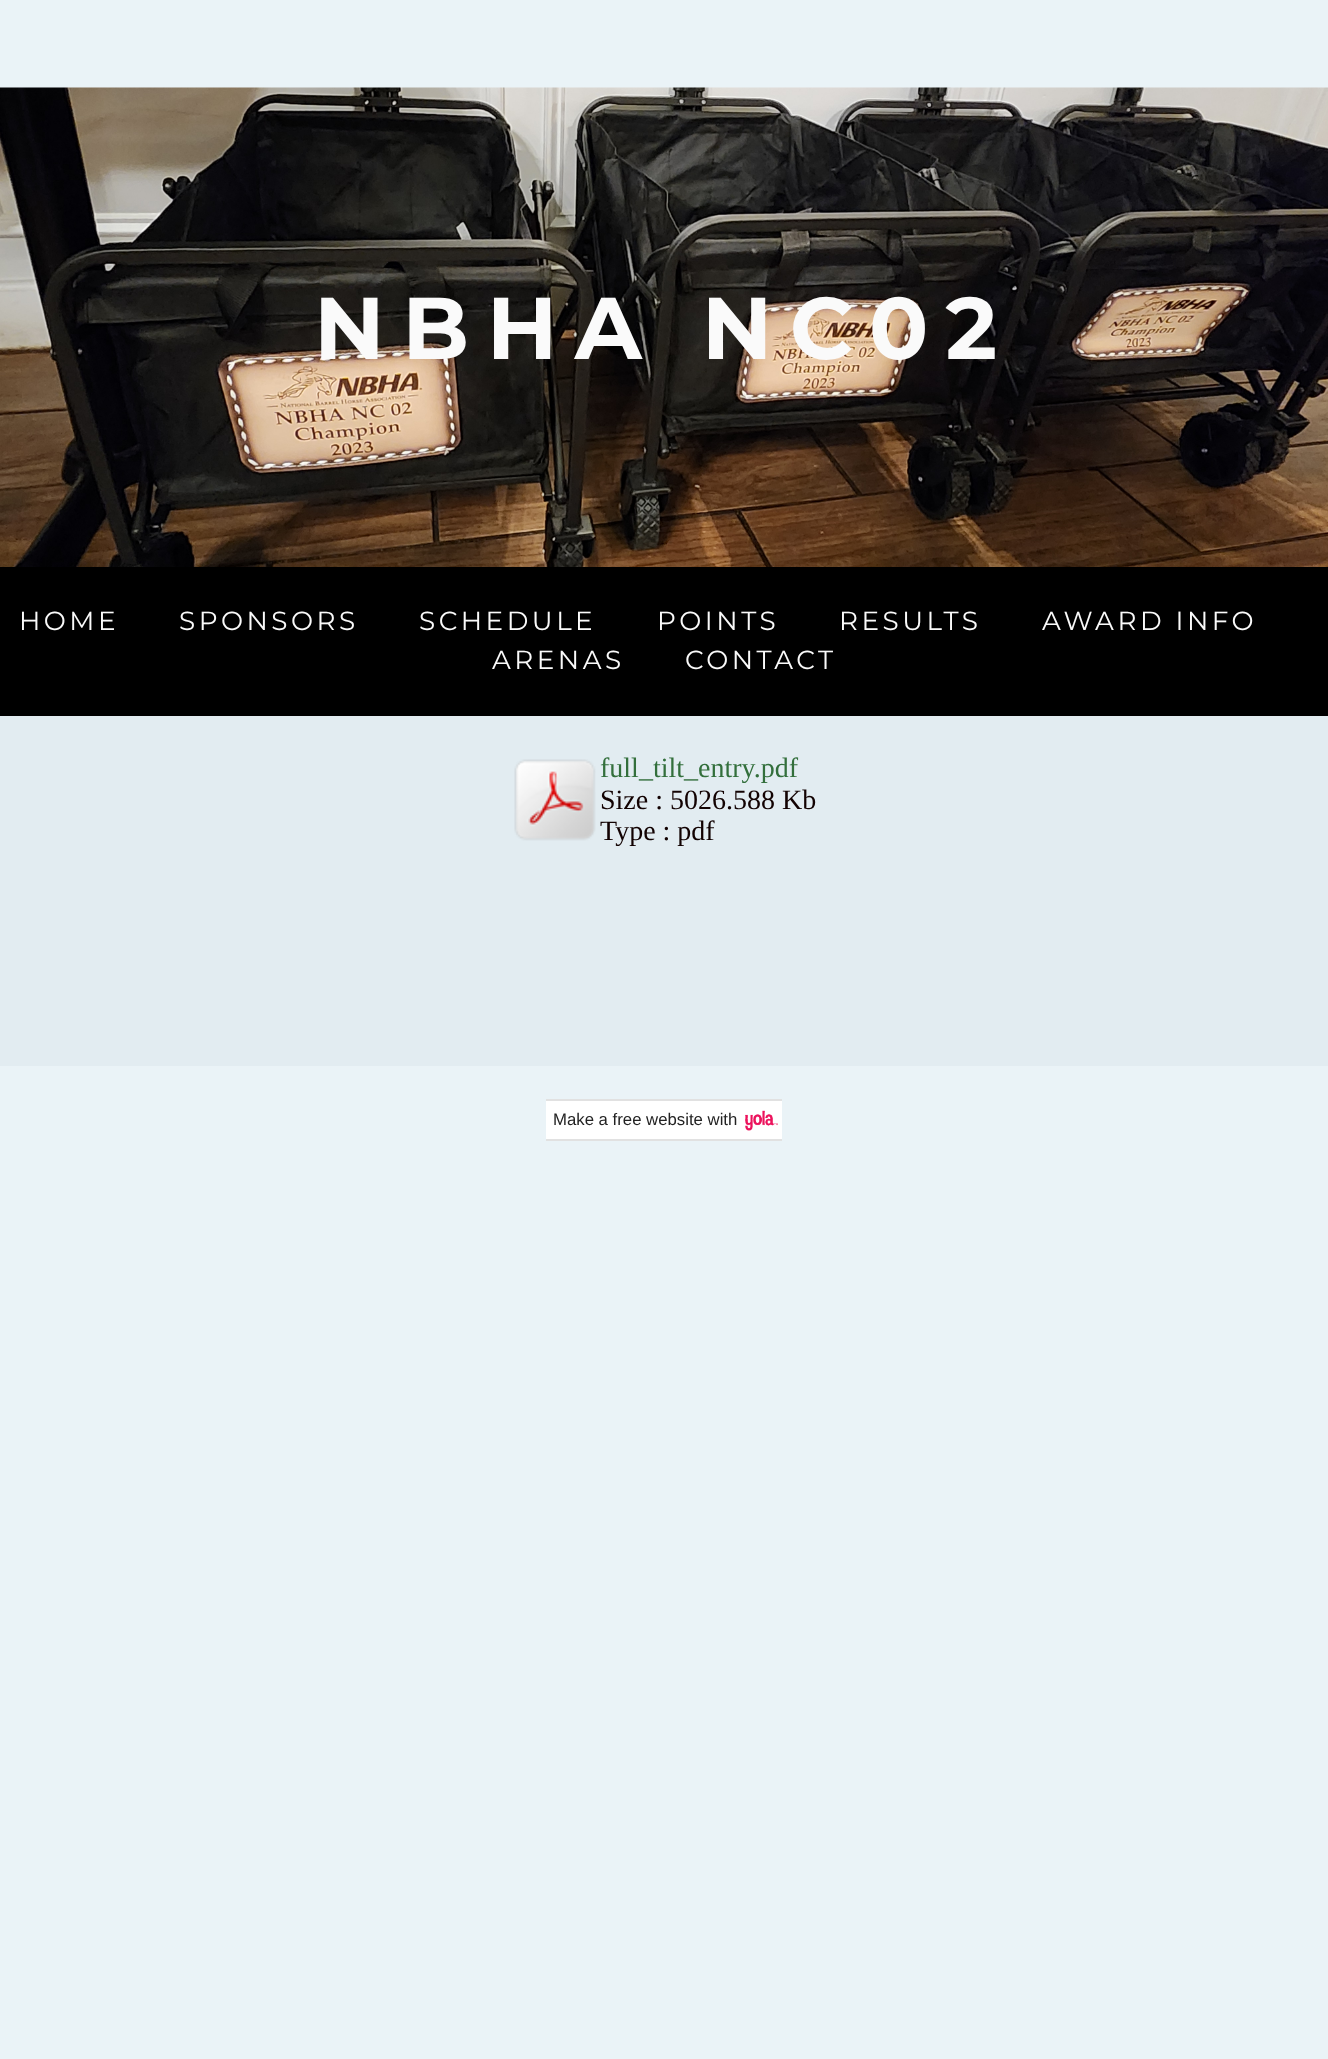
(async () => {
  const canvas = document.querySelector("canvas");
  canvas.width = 1328;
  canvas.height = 2059;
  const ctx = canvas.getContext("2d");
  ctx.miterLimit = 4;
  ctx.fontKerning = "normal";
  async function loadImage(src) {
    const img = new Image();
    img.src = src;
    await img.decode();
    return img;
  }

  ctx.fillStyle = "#eaf3f7";
  ctx.fillRect(0, 0, 1328, 2059);
  ctx.drawImage(await loadImage("img/1.png"), 0, 87, 1328, 480);
  ctx.fillStyle = "#000000";
  ctx.fillRect(0, 567, 1328, 149);
  ctx.fillStyle = "#e2ecf1";
  ctx.fillRect(0, 716, 1328, 350);
  ctx.drawImage(await loadImage("img/2.png"), 514, 759, 82, 82);
  ctx.fillStyle = "#ffffff";
  ctx.fillRect(546, 1101, 236, 38);
  ctx.drawImage(await loadImage("img/3.png"), 745, 1110, 33, 21);
  ctx.fillStyle = "#e1e1e1";
  ctx.fillRect(546, 1099, 236, 2);
  ctx.fillRect(546, 1139, 236, 2);
  ctx.letterSpacing = "17.5px";
  ctx.font = "bold 87.5px Montserrat";
  ctx.fillStyle = "#fafafa";
  ctx.fillText("NBHA NC02", 314, 359);
  ctx.letterSpacing = "3.5px";
  ctx.font = "26.25px Montserrat";
  for (const [text, x, y] of [
    ["HOME", 19, 630],
    ["SPONSORS", 179, 630],
    ["SCHEDULE", 419, 630],
    ["POINTS", 657, 630],
    ["RESULTS", 839, 630],
    ["AWARD INFO", 1042, 630],
    ["ARENAS", 492, 669],
    ["CONTACT", 685, 669],
  ]) {
    ctx.fillText(text, x, y);
  }
  ctx.letterSpacing = "0px";
  ctx.font = "28px Liberation Serif";
  ctx.fillStyle = "#336f3c";
  ctx.fillText("full_tilt_entry.pdf", 600, 777);
  ctx.fillStyle = "#120202";
  ctx.fillText("Size : 5026.588 Kb", 600, 809);
  ctx.fillText("Type : pdf", 600, 840);
  ctx.font = "16.75px Liberation Sans";
  ctx.fillStyle = "#222222";
  ctx.fillText("Make a free website with", 553, 1125);
})();
